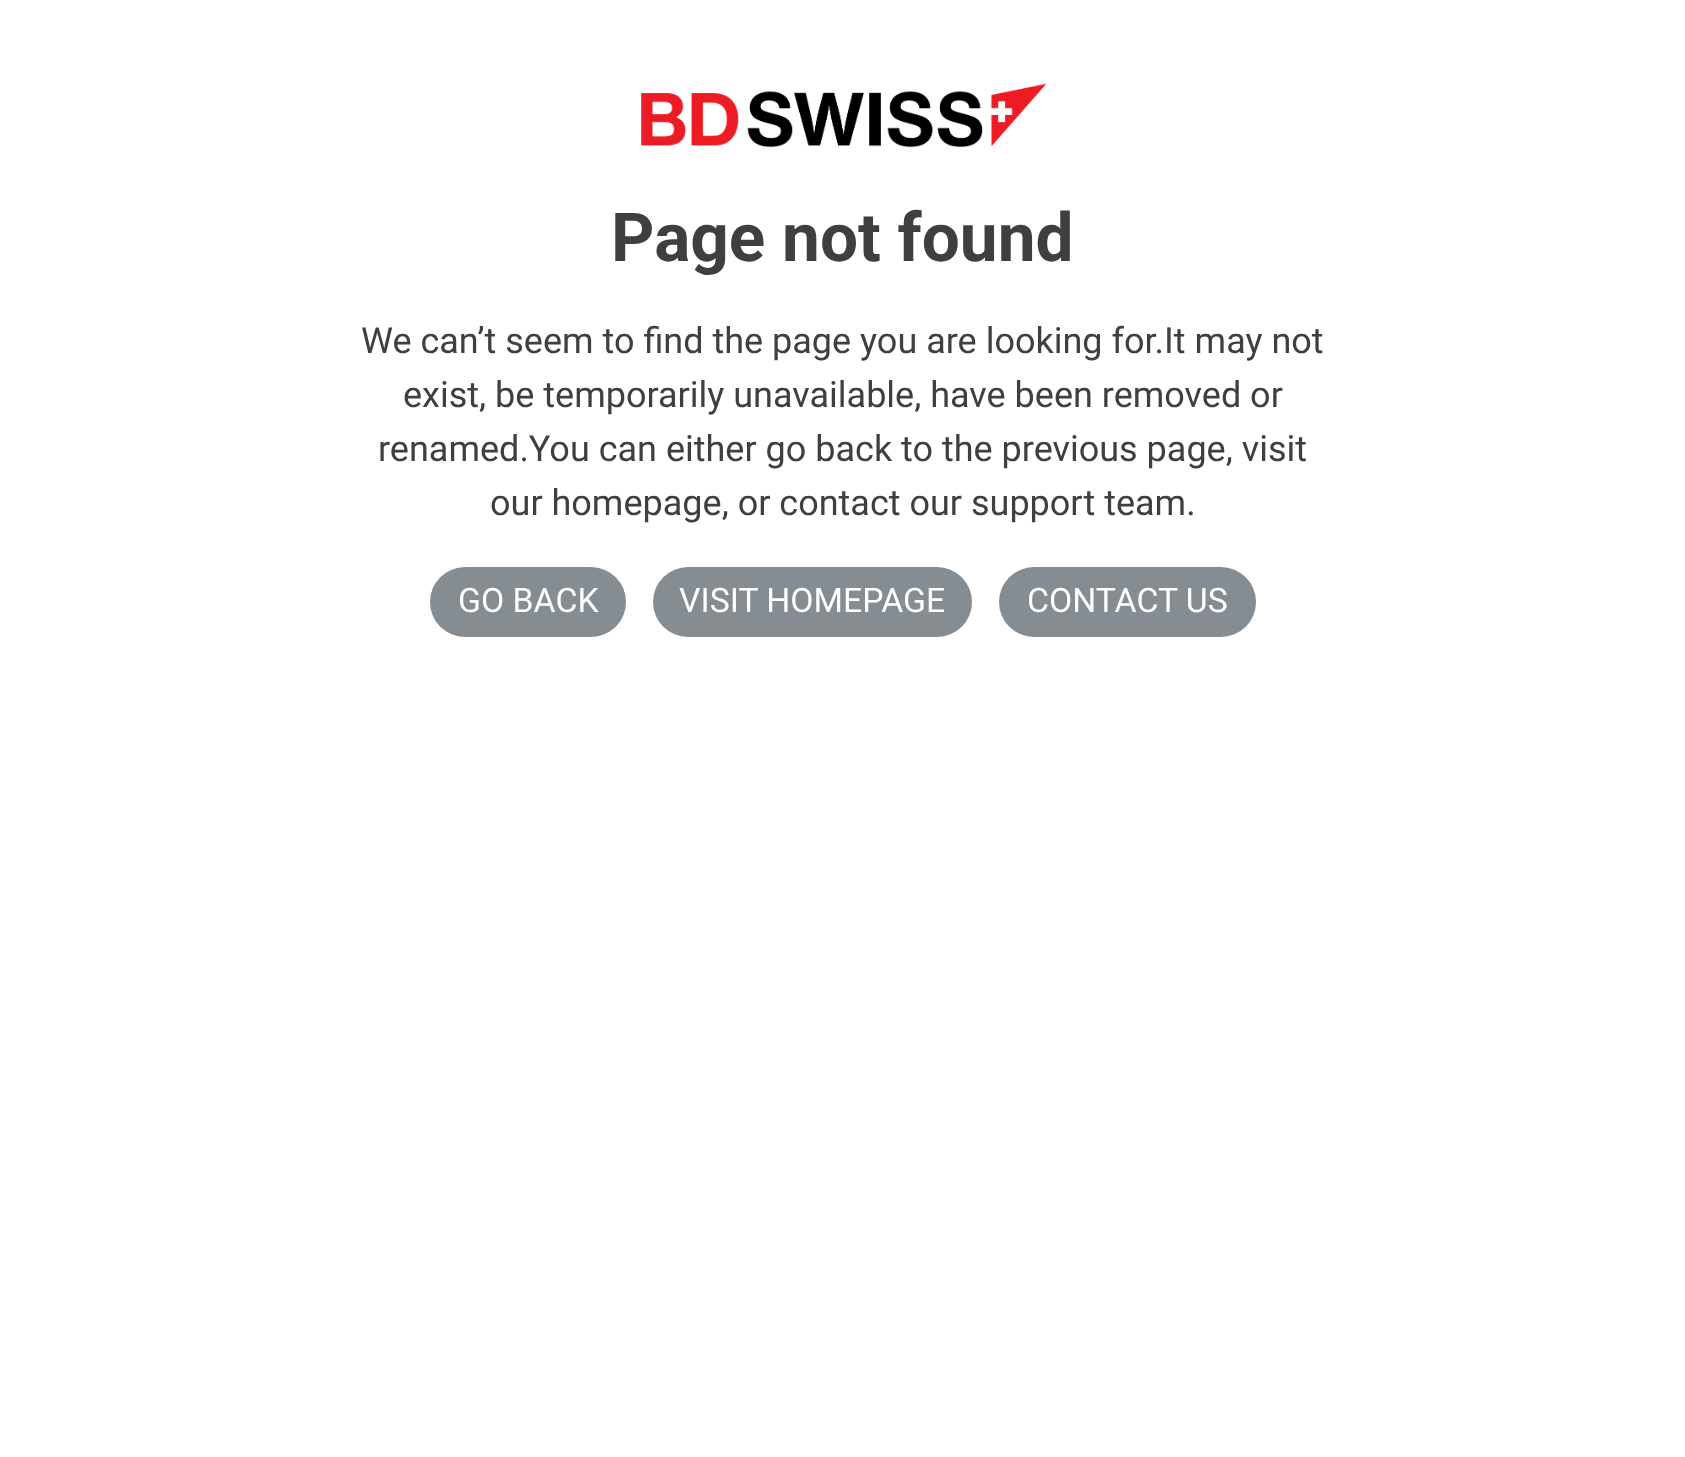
(async () => {
  const canvas = document.querySelector("canvas");
  canvas.width = 1685;
  canvas.height = 1457;
  const ctx = canvas.getContext("2d");
  ctx.miterLimit = 4;
  ctx.fontKerning = "normal";
  async function loadImage(src) {
    const img = new Image();
    img.src = src;
    await img.decode();
    return img;
  }

  ctx.fillStyle = "#ffffff";
  ctx.fillRect(0, 0, 1685, 1457);
  ctx.drawImage(await loadImage("img/1.png"), 641, 83, 406, 65);
  ctx.fillStyle = "#858c92";
  ctx.beginPath();
  ctx.roundRect(430, 567, 196, 70, 35);
  ctx.fill();
  ctx.beginPath();
  ctx.roundRect(653, 567, 319, 70, 35);
  ctx.fill();
  ctx.beginPath();
  ctx.roundRect(999, 567, 257, 70, 35);
  ctx.fill();
  ctx.font = "bold 67.5px Roboto";
  ctx.fillStyle = "#3f3f3f";
  ctx.fillText("Page not found", 611, 261);
  ctx.font = "36px Roboto";
  for (const [text, x, y] of [
    ["We can’t seem to find the page you are looking for.It may not", 361, 353],
    ["exist, be temporarily unavailable, have been removed or", 403, 407],
    ["renamed.You can either go back to the previous page, visit", 378, 461],
    ["our homepage, or contact our support team.", 490, 515],
  ]) {
    ctx.fillText(text, x, y);
  }
  ctx.font = "33.75px Roboto";
  ctx.fillStyle = "#ffffff";
  for (const [text, x, y] of [
    ["GO BACK", 458, 612],
    ["VISIT HOMEPAGE", 679, 612],
    ["CONTACT US", 1027, 612],
  ]) {
    ctx.fillText(text, x, y);
  }
})();
